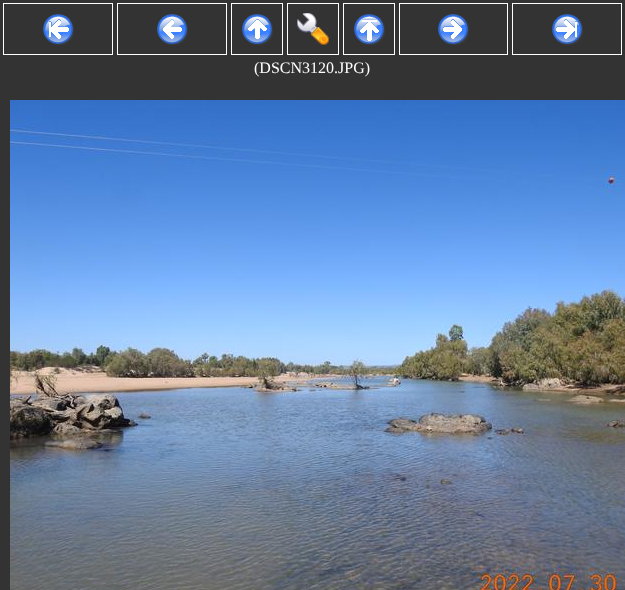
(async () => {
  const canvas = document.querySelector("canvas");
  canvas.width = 625;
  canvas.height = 590;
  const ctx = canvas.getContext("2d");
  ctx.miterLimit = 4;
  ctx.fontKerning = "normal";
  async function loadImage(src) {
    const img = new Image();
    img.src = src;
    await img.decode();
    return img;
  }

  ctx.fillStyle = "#333333";
  ctx.fillRect(0, 0, 625, 590);
  ctx.strokeStyle = "#ffffff";
  ctx.strokeRect(3.5, 3.5, 109, 51);
  ctx.drawImage(await loadImage("img/1.png"), 43, 14, 31, 31);
  ctx.strokeRect(117.5, 3.5, 109, 51);
  ctx.drawImage(await loadImage("img/2.png"), 157, 14, 31, 31);
  ctx.strokeRect(231.5, 3.5, 51, 51);
  ctx.drawImage(await loadImage("img/3.png"), 242, 14, 31, 31);
  ctx.strokeRect(287.5, 3.5, 51, 51);
  ctx.drawImage(await loadImage("img/4.png"), 297, 13, 32, 32);
  ctx.strokeRect(343.5, 3.5, 51, 51);
  ctx.drawImage(await loadImage("img/5.png"), 354, 14, 31, 31);
  ctx.strokeRect(399.5, 3.5, 108, 51);
  ctx.drawImage(await loadImage("img/6.png"), 438, 14, 31, 31);
  ctx.strokeRect(512.5, 3.5, 109, 51);
  ctx.drawImage(await loadImage("img/7.png"), 552, 14, 31, 31);
  ctx.drawImage(await loadImage("img/8.png"), 10, 100, 615, 490);
  ctx.font = "16px Liberation Serif";
  ctx.fillStyle = "#ffffff";
  ctx.fillText("(DSCN3120.JPG)", 254, 73);
})();
